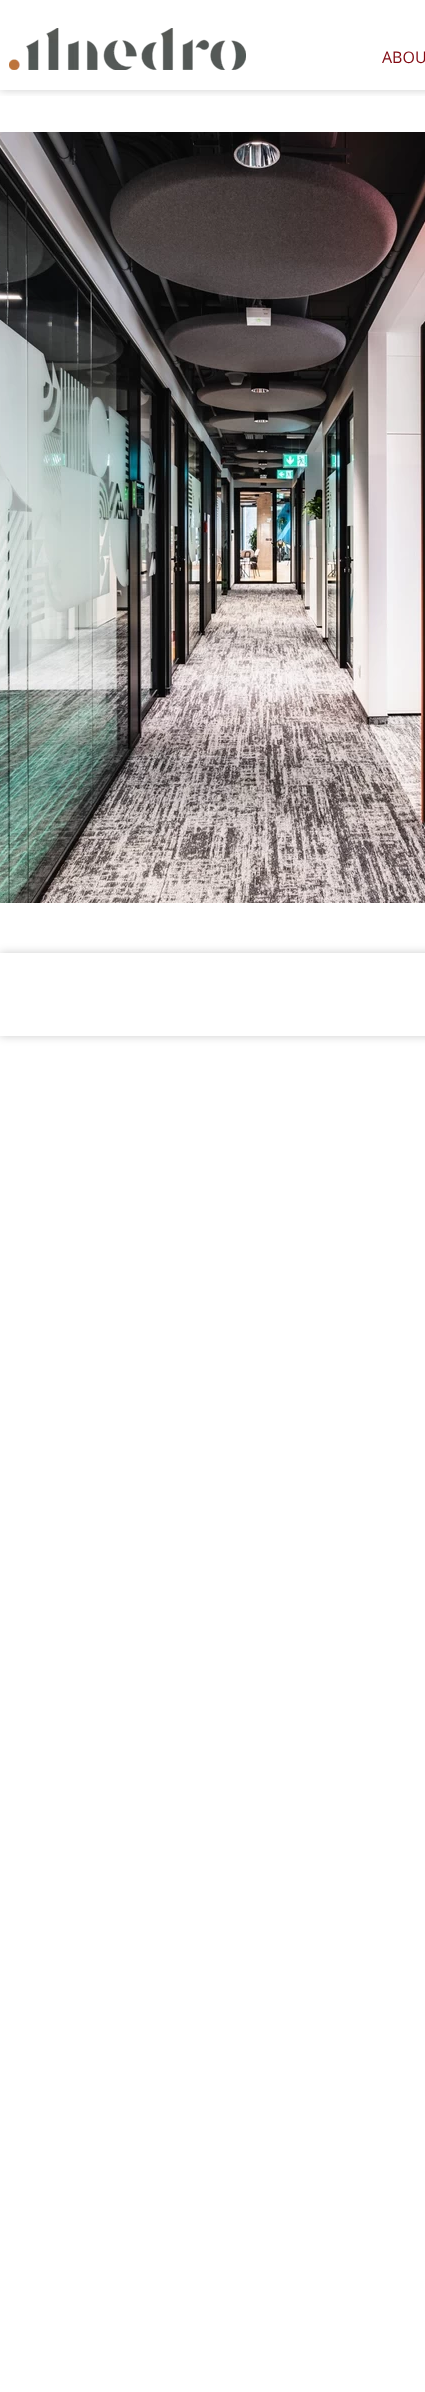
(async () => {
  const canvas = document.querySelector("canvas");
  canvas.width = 425;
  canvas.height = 2392;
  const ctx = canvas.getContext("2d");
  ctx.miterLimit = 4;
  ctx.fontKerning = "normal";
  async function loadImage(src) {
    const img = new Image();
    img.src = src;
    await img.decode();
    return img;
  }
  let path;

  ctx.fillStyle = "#ffffff";
  ctx.fillRect(0, 0, 425, 2392);
  ctx.save();
  ctx.beginPath();
  ctx.rect(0, 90, 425, 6);
  ctx.clip();
  ctx.fillStyle = "rgba(0, 0, 0, 0.2)";
  ctx.filter = "blur(5px)";
  ctx.beginPath();
  ctx.rect(0, 0, 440, 90);
  ctx.fill();
  ctx.filter = "none";
  ctx.restore();
  ctx.drawImage(await loadImage("img/1.png"), 9, 28, 237, 42);
  ctx.drawImage(await loadImage("img/2.png"), 0, 132, 425, 771);
  ctx.save();
  path = new Path2D("M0 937H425V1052H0ZM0 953H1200V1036H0Z");
  ctx.clip(path, "evenodd");
  ctx.fillStyle = "rgba(0, 0, 0, 0.2)";
  ctx.filter = "blur(5px)";
  ctx.beginPath();
  ctx.rect(0, 953, 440, 83);
  ctx.fill();
  ctx.filter = "none";
  ctx.restore();
  ctx.font = "16px Open Sans";
  ctx.fillStyle = "#810911";
  ctx.fillText("ABOU", 382, 63);
})();
